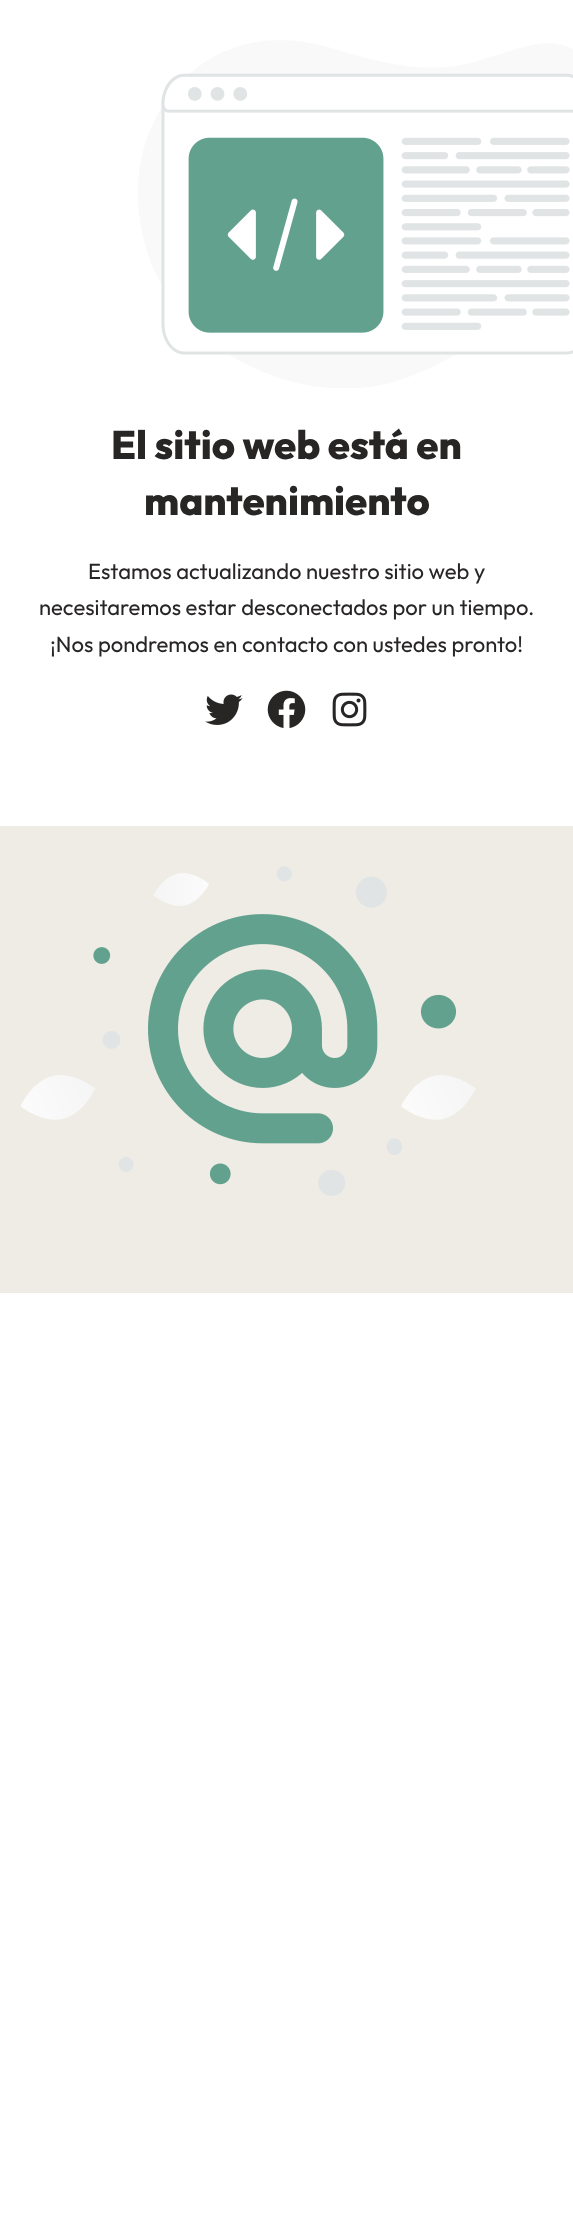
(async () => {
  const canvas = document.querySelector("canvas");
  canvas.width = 573;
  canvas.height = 2214;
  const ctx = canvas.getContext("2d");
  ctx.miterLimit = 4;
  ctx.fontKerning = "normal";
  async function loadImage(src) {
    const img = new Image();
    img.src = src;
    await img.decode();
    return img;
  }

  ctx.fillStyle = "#ffffff";
  ctx.fillRect(0, 0, 573, 2214);
  ctx.drawImage(await loadImage("img/1.png"), 138, 40, 435, 348);
  ctx.drawImage(await loadImage("img/2.png"), 205, 694, 38, 31);
  ctx.drawImage(await loadImage("img/3.png"), 267, 690, 39, 38);
  ctx.drawImage(await loadImage("img/4.png"), 332, 692, 35, 35);
  ctx.fillStyle = "#efece5";
  ctx.fillRect(0, 826, 573, 467);
  ctx.drawImage(await loadImage("img/5.png"), 20, 866, 456, 330);
  ctx.font = "800 40px Outfit";
  ctx.fillStyle = "#282525";
  ctx.fillText("El sitio web está en", 111, 459);
  ctx.fillText("mantenimiento", 144, 515);
  ctx.font = "22px Outfit";
  for (const [text, x, y] of [
    ["Estamos actualizando nuestro sitio web y", 88, 579],
    ["necesitaremos estar desconectados por un tiempo.", 39, 615],
    ["¡Nos pondremos en contacto con ustedes pronto!", 50, 652],
  ]) {
    ctx.fillText(text, x, y);
  }
})();
